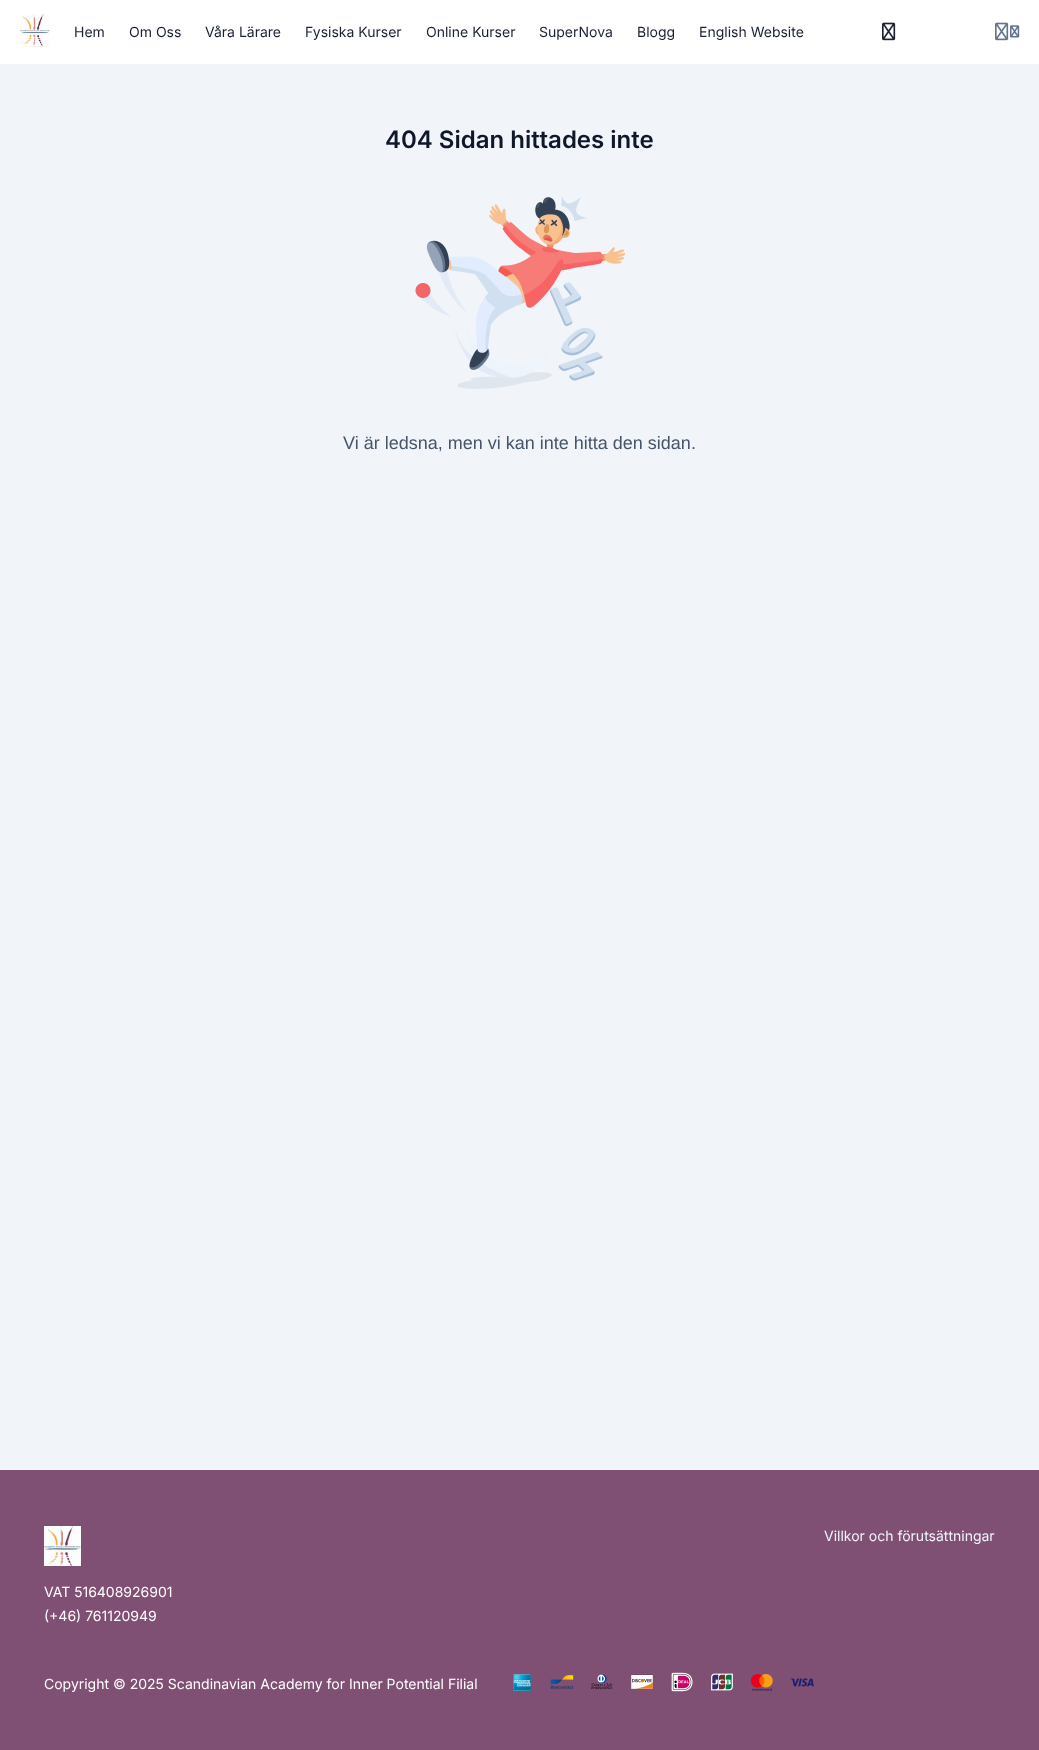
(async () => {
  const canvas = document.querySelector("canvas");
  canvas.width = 1039;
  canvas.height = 1750;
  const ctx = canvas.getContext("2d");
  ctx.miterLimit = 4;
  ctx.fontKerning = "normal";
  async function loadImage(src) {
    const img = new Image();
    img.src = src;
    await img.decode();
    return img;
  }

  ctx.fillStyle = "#f1f5f9";
  ctx.fillRect(0, 0, 1039, 1750);
  ctx.fillStyle = "#ffffff";
  ctx.fillRect(0, 0, 1039, 64);
  ctx.drawImage(await loadImage("img/1.png"), 20, 14, 30, 33);
  ctx.drawImage(await loadImage("img/2.png"), 882, 22, 14, 19);
  ctx.drawImage(await loadImage("img/3.png"), 995, 22, 14, 19);
  ctx.drawImage(await loadImage("img/4.png"), 1010, 25, 10, 13);
  ctx.drawImage(await loadImage("img/5.png"), 415, 197, 210, 192);
  ctx.fillStyle = "#804f74";
  ctx.fillRect(0, 1470, 1039, 280);
  ctx.drawImage(await loadImage("img/6.png"), 44, 1526, 37, 40);
  ctx.drawImage(await loadImage("img/7.png"), 511, 1674, 20, 17);
  ctx.drawImage(await loadImage("img/8.png"), 550, 1675, 24, 14);
  ctx.drawImage(await loadImage("img/9.png"), 591, 1674, 22, 15);
  ctx.drawImage(await loadImage("img/10.png"), 631, 1674, 22, 15);
  ctx.drawImage(await loadImage("img/11.png"), 671, 1672, 22, 20);
  ctx.drawImage(await loadImage("img/12.png"), 711, 1673, 22, 18);
  ctx.drawImage(await loadImage("img/13.png"), 750, 1674, 23, 17);
  ctx.drawImage(await loadImage("img/14.png"), 790, 1678, 24, 9);
  ctx.font = "14px Inter";
  ctx.fillStyle = "#1a2133";
  for (const [text, x, y] of [
    ["Hem", 74, 37],
    ["Om Oss", 129, 37],
    ["Våra Lärare", 205, 37],
    ["Fysiska Kurser", 305, 37],
    ["Online Kurser", 426, 37],
    ["SuperNova", 539, 37],
    ["Blogg", 637, 37],
    ["English Website", 699, 37],
  ]) {
    ctx.fillText(text, x, y);
  }
  ctx.font = "600 24px Inter";
  ctx.fillStyle = "#0f172a";
  ctx.fillText("404 Sidan hittades inte", 385, 148);
  ctx.font = "18px Liberation Sans";
  ctx.fillStyle = "#475569";
  ctx.fillText("Vi är ledsna, men vi kan inte hitta den sidan.", 343, 449);
  ctx.font = "14px Inter";
  ctx.fillStyle = "#f1f5f9";
  ctx.fillText("Villkor och förutsättningar", 824, 1541);
  ctx.fillStyle = "#ffffff";
  for (const [text, x, y] of [
    ["VAT 516408926901", 44, 1597],
    ["(+46) 761120949", 44, 1621],
    ["Copyright © 2025 Scandinavian Academy for Inner Potential Filial", 44, 1689],
  ]) {
    ctx.fillText(text, x, y);
  }
})();
